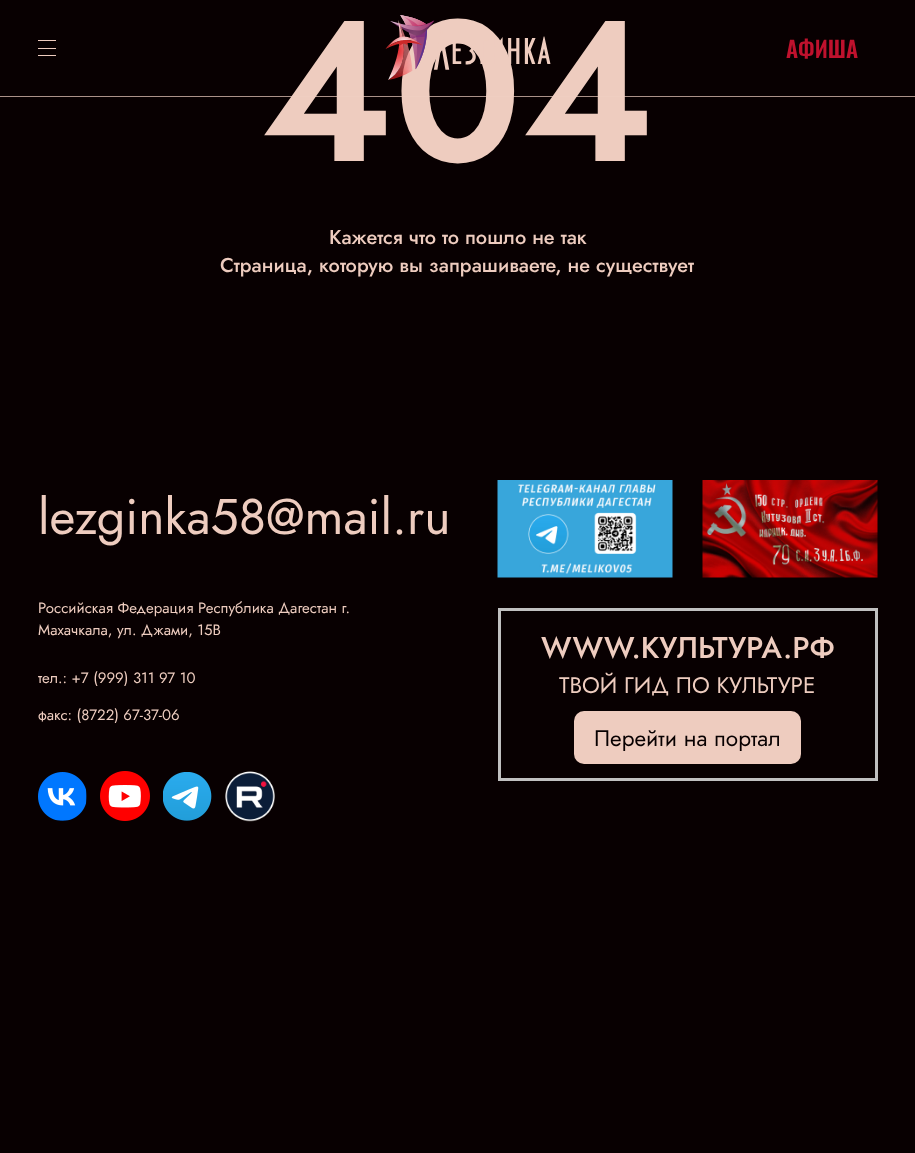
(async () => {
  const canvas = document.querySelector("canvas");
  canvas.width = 915;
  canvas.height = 1153;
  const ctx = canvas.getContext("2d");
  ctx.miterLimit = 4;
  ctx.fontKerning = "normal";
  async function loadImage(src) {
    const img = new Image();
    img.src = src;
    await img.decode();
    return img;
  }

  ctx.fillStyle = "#080001";
  ctx.fillRect(0, 0, 915, 1153);
  for (const [x, y, w, h, color] of [
    [38, 40, 18, 1, "#eeccbf"],
    [38, 48, 18, 1, "#eeccbf"],
    [38, 55, 18, 1, "#eeccbf"],
  ]) {
    ctx.fillStyle = color;
    ctx.fillRect(x, y, w, h);
  }
  ctx.drawImage(await loadImage("img/2.png"), 38, 772, 49, 49);
  ctx.drawImage(await loadImage("img/3.png"), 100, 771, 50, 50);
  ctx.drawImage(await loadImage("img/4.png"), 163, 772, 49, 49);
  ctx.drawImage(await loadImage("img/5.png"), 225, 771, 50, 51);
  ctx.drawImage(await loadImage("img/6.png"), 497, 480, 176, 98);
  ctx.drawImage(await loadImage("img/7.png"), 702, 480, 176, 98);
  ctx.strokeStyle = "#c0c0c0";
  ctx.lineWidth = 3;
  ctx.strokeRect(499.5, 609.5, 377, 170);
  ctx.beginPath();
  ctx.roundRect(574, 711, 227, 53, 10);
  ctx.fill();
  ctx.font = "600 200px Jost";
  ctx.fillText("404", 261, 161);
  ctx.font = "500 20px Jost";
  ctx.fillText("Кажется что то пошло не так", 329, 244);
  ctx.fillText("Страница, которую вы запрашиваете, не существует", 220, 272);
  ctx.fillStyle = "rgba(239, 207, 194, 0.7)";
  ctx.fillRect(0, 96, 915, 1);
  ctx.drawImage(await loadImage("img/1.png"), 385, 15, 166, 65);
  ctx.font = "600 22.5px Oswald";
  ctx.fillStyle = "#bf112d";
  ctx.fillText("АФИША", 786, 58);
  ctx.font = "50px Jost";
  ctx.fillStyle = "#eeccbf";
  ctx.fillText("lezginka58@mail.ru", 38, 534);
  ctx.font = "15px Jost";
  for (const [text, x, y] of [
    ["Российская Федерация Республика Дагестан г.", 38, 613],
    ["Махачкала, ул. Джами, 15В", 38, 635],
    ["тел.: +7 (999) 311 97 10", 38, 683],
    ["факс: (8722) 67-37-06", 38, 720],
  ]) {
    ctx.fillText(text, x, y);
  }
  ctx.font = "500 30px Jost";
  ctx.fillText("WWW.КУЛЬТУРА.РФ", 541, 658);
  ctx.font = "22.5px Jost";
  ctx.fillText("ТВОЙ ГИД ПО КУЛЬТУРЕ", 559, 693);
  ctx.fillStyle = "#080001";
  ctx.fillText("Перейти на портал", 594, 746);
})();
